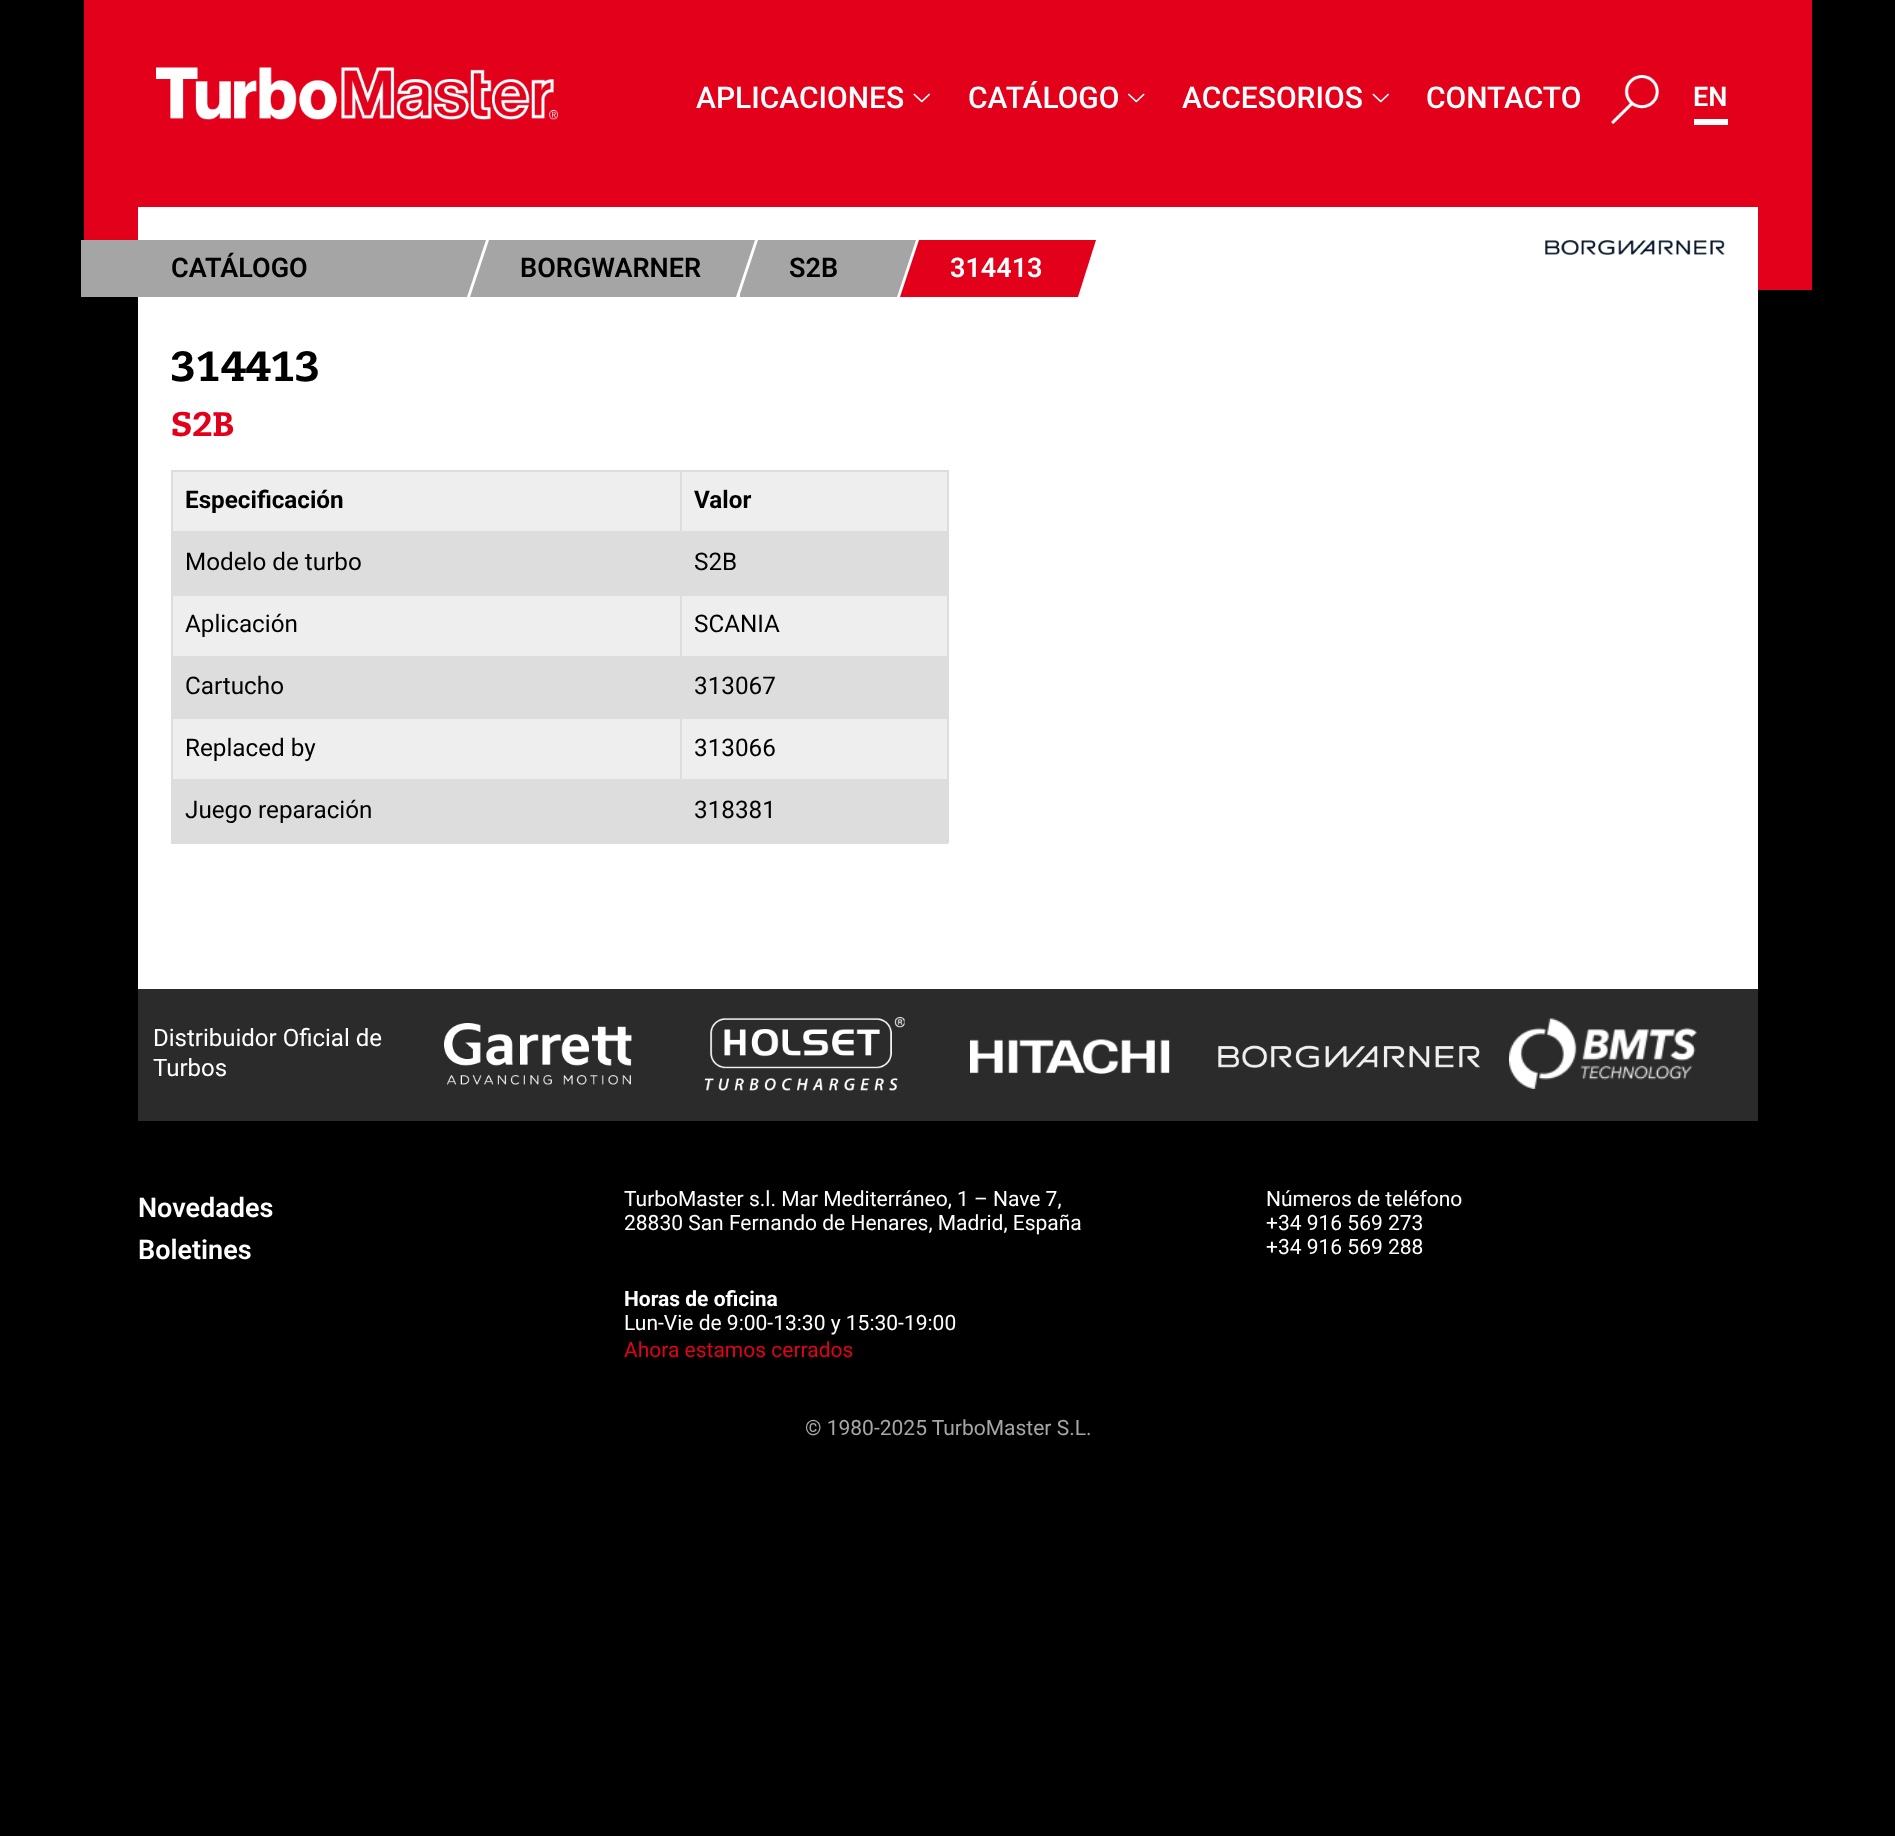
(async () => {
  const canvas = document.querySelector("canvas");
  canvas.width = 1895;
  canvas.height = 1836;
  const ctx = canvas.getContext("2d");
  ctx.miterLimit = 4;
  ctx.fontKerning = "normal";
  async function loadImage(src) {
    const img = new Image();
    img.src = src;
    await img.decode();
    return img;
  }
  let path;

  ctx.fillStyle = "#000000";
  ctx.fillRect(0, 0, 1895, 1836);
  ctx.fillStyle = "#e2001a";
  ctx.fillRect(84, 0, 1728, 290);
  ctx.drawImage(await loadImage("img/1.png"), 156, 67, 402, 53);
  ctx.drawImage(await loadImage("img/2.png"), 913, 93, 17, 10);
  ctx.drawImage(await loadImage("img/3.png"), 1128, 93, 17, 10);
  ctx.drawImage(await loadImage("img/2.png"), 1372, 93, 17, 10);
  ctx.drawImage(await loadImage("img/4.png"), 1611, 75, 48, 50);
  for (const [x, y, w, h, color] of [
    [1694, 119, 34, 6, "#ffffff"],
    [138, 956, 1620, 33, "#ffffff"],
    [138, 207, 1620, 749, "#ffffff"],
  ]) {
    ctx.fillStyle = color;
    ctx.fillRect(x, y, w, h);
  }
  ctx.drawImage(await loadImage("img/5.png"), 1545, 240, 180, 15);
  ctx.fillStyle = "#a5a5a5";
  ctx.fillRect(81, 240, 359, 57);
  path = new Path2D("M440 240H486L467 297H440Z");
  ctx.fill(path);
  ctx.fillRect(516, 240, 192, 57);
  path = new Path2D("M516 297H470L489 240H516Z");
  ctx.fill(path);
  path = new Path2D("M755 240L736 297H708V240Z");
  ctx.fill(path);
  ctx.fillRect(786, 240, 84, 57);
  path = new Path2D("M740 294L758 240H786V297H740Z");
  ctx.fill(path);
  path = new Path2D("M870 240H916L897 297H870Z");
  ctx.fill(path);
  ctx.fillStyle = "#e2001a";
  ctx.fillRect(947, 240, 103, 57);
  path = new Path2D("M947 240V297H900L919 240Z");
  ctx.fill(path);
  path = new Path2D("M1050 240H1096L1078 297H1050Z");
  ctx.fill(path);
  for (const [x, y, w, h, color] of [
    [173, 472, 507, 59, "#eeeeee"],
    [680, 470, 268, 2, "#dddddd"],
    [171, 531, 777, 2, "#dddddd"],
    [680, 470, 2, 63, "#dddddd"],
    [171, 470, 510, 2, "#dddddd"],
    [680, 594, 268, 2, "#dddddd"],
    [173, 656, 774, 63, "#dddddd"],
    [680, 594, 2, 63, "#dddddd"],
    [171, 594, 510, 2, "#dddddd"],
    [171, 779, 777, 2, "#dddddd"],
    [947, 656, 2, 187, "#dddddd"],
    [171, 842, 777, 2, "#dddddd"],
    [171, 779, 2, 64, "#dddddd"],
    [171, 717, 2, 63, "#dddddd"],
    [171, 656, 2, 63, "#dddddd"],
    [171, 594, 2, 63, "#dddddd"],
    [171, 531, 2, 65, "#dddddd"],
    [171, 470, 2, 63, "#dddddd"],
    [682, 472, 265, 59, "#eeeeee"],
    [947, 594, 2, 63, "#dddddd"],
    [947, 531, 2, 65, "#dddddd"],
    [947, 470, 2, 63, "#dddddd"],
    [173, 533, 774, 61, "#dddddd"],
    [173, 596, 507, 60, "#eeeeee"],
    [682, 596, 265, 60, "#eeeeee"],
    [173, 719, 507, 60, "#eeeeee"],
    [682, 719, 265, 60, "#eeeeee"],
    [680, 717, 2, 63, "#dddddd"],
    [173, 781, 774, 61, "#dddddd"],
    [138, 989, 1620, 132, "#2b2b2b"],
  ]) {
    ctx.fillStyle = color;
    ctx.fillRect(x, y, w, h);
  }
  ctx.drawImage(await loadImage("img/6.png"), 444, 1023, 188, 62);
  ctx.drawImage(await loadImage("img/7.png"), 704, 1017, 201, 74);
  ctx.drawImage(await loadImage("img/8.png"), 970, 1039, 200, 35);
  ctx.drawImage(await loadImage("img/9.png"), 1218, 1045, 262, 23);
  ctx.drawImage(await loadImage("img/10.png"), 1509, 1018, 188, 71);
  ctx.font = "500 30px Roboto";
  ctx.fillStyle = "#ffffff";
  for (const [text, x, y] of [
    ["APLICACIONES", 696, 108],
    ["CATÁLOGO", 968, 108],
    ["ACCESORIOS", 1182, 108],
    ["CONTACTO", 1426, 108],
  ]) {
    ctx.fillText(text, x, y);
  }
  ctx.font = "600 27px Roboto";
  ctx.fillText("EN", 1693, 106);
  ctx.fillStyle = "#000000";
  for (const [text, x, y] of [
    ["CATÁLOGO", 171, 277],
    ["BORGWARNER", 520, 277],
    ["S2B", 789, 277],
  ]) {
    ctx.fillText(text, x, y);
  }
  ctx.fillStyle = "#ffffff";
  ctx.fillText("314413", 950, 277);
  ctx.font = "900 42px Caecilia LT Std";
  ctx.fillStyle = "#000000";
  ctx.fillText("314413", 171, 381);
  ctx.font = "900 34px Caecilia LT Std";
  ctx.fillStyle = "#e2001a";
  ctx.fillText("S2B", 171, 436);
  ctx.font = "bold 24.25px Roboto";
  ctx.fillStyle = "#000000";
  ctx.fillText("Especificación", 185, 508);
  ctx.fillText("Valor", 694, 508);
  ctx.font = "24.25px Roboto";
  for (const [text, x, y] of [
    ["Modelo de turbo", 185, 570],
    ["S2B", 694, 570],
    ["Aplicación", 185, 632],
    ["SCANIA", 694, 632],
    ["Cartucho", 185, 694],
    ["313067", 694, 694],
    ["Replaced by", 185, 756],
    ["313066", 694, 756],
    ["Juego reparación", 185, 818],
    ["318381", 694, 818],
  ]) {
    ctx.fillText(text, x, y);
  }
  ctx.font = "24px Roboto";
  ctx.fillStyle = "#ffffff";
  ctx.fillText("Distribuidor Oficial de", 153, 1046);
  ctx.fillText("Turbos", 153, 1076);
  ctx.font = "600 27px Roboto";
  ctx.fillText("Novedades", 138, 1217);
  ctx.fillText("Boletines", 138, 1259);
  ctx.font = "21px Roboto";
  ctx.fillText("TurboMaster s.l. Mar Mediterráneo, 1 – Nave 7,", 624, 1206);
  ctx.fillText("28830 San Fernando de Henares, Madrid, España", 624, 1230);
  ctx.font = "bold 21px Roboto";
  ctx.fillText("Horas de oficina", 624, 1306);
  ctx.font = "21px Roboto";
  ctx.fillText("Lun-Vie de 9:00-13:30 y 15:30-19:00", 624, 1330);
  ctx.fillStyle = "#e2001a";
  ctx.fillText("Ahora estamos cerrados", 624, 1357);
  ctx.fillStyle = "#ffffff";
  for (const [text, x, y] of [
    ["Números de teléfono", 1266, 1206],
    ["+34 916 569 273", 1266, 1230],
    ["+34 916 569 288", 1266, 1254],
  ]) {
    ctx.fillText(text, x, y);
  }
  ctx.fillStyle = "#a6a6a6";
  ctx.fillText("© 1980-2025 TurboMaster S.L.", 805, 1435);
})();
